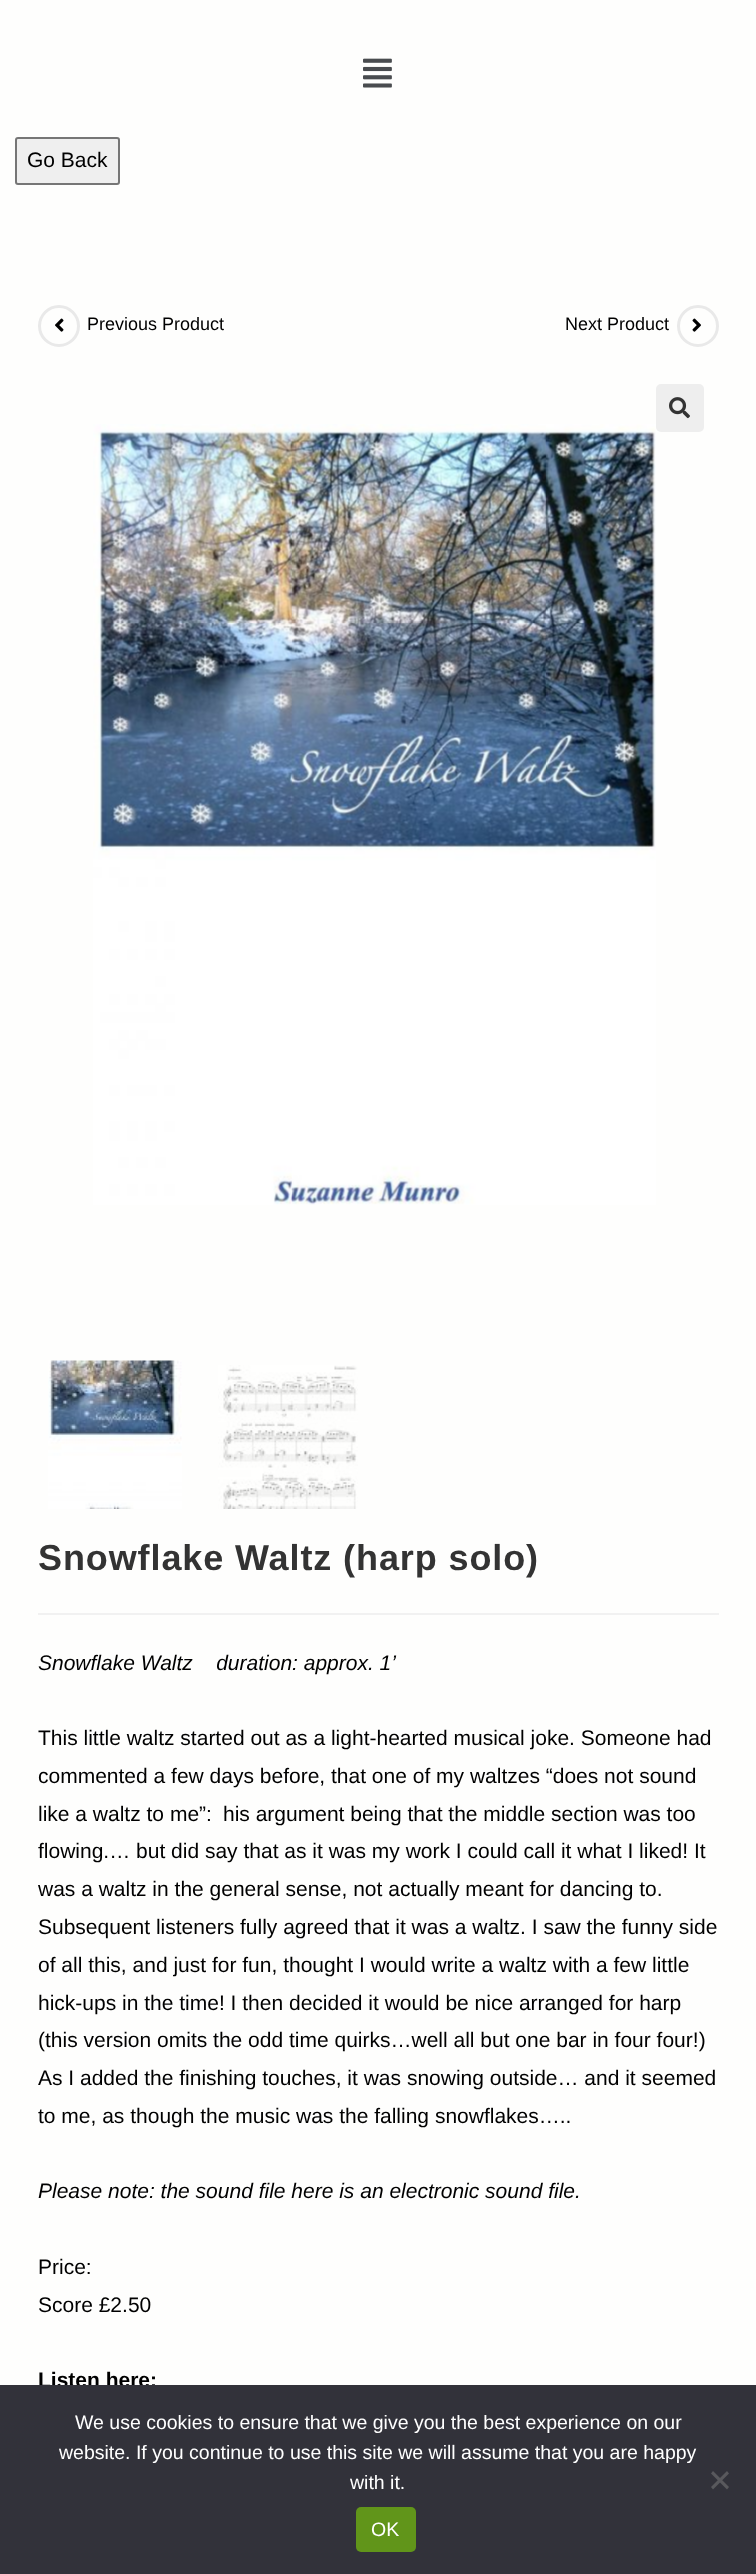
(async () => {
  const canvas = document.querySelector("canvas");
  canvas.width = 756;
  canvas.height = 2574;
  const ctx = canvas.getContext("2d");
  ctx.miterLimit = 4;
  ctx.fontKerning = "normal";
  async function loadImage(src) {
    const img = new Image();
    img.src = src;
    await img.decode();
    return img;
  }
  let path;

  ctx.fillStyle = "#fefefd";
  ctx.fillRect(0, 0, 756, 2574);
  ctx.drawImage(await loadImage("img/1.png"), 363, 58, 29, 30);
  ctx.fillStyle = "#efefef";
  ctx.beginPath();
  ctx.roundRect(16, 138, 103, 46, 2);
  ctx.fill();
  ctx.strokeStyle = "#767676";
  ctx.lineWidth = 2;
  ctx.stroke();
  ctx.beginPath();
  ctx.arc(59, 326, 19.5, 0, Math.PI * 2);
  ctx.strokeStyle = "#e9e9e9";
  ctx.lineWidth = 3;
  ctx.stroke();
  ctx.drawImage(await loadImage("img/2.png"), 55, 318, 9, 14);
  ctx.beginPath();
  ctx.arc(698, 326, 19.5, 0, Math.PI * 2);
  ctx.stroke();
  ctx.drawImage(await loadImage("img/3.png"), 692, 318, 9, 14);
  ctx.fillStyle = "#eeeeee";
  ctx.beginPath();
  ctx.roundRect(656, 384, 48, 48, 5);
  ctx.fill();
  ctx.drawImage(await loadImage("img/4.png"), 669, 397, 21, 22);
  ctx.drawImage(await loadImage("img/5.png"), 93, 424, 563, 781);
  ctx.drawImage(await loadImage("img/6.png"), 48, 1360, 134, 149);
  ctx.drawImage(await loadImage("img/7.png"), 218, 1365, 140, 144);
  ctx.fillStyle = "#f1f1f1";
  ctx.fillRect(38, 1613, 681, 2);
  ctx.font = "21px Liberation Sans";
  ctx.fillStyle = "#000000";
  ctx.fillText("Go Back", 27, 167);
  ctx.font = "18px Liberation Sans";
  ctx.fillText("Previous Product", 87, 330);
  ctx.fillText("Next Product", 565, 330);
  ctx.letterSpacing = "0.9px";
  ctx.font = "bold 36px Liberation Sans";
  ctx.fillStyle = "#333333";
  ctx.fillText("Snowflake Waltz (harp solo)", 38, 1570);
  ctx.letterSpacing = "0px";
  ctx.font = "italic 21px Liberation Sans";
  ctx.fillStyle = "#000000";
  ctx.fillText("Snowflake Waltz    duration: approx. 1’", 38, 1670);
  ctx.font = "21px Liberation Sans";
  for (const [text, x, y] of [
    ["This little waltz started out as a light-hearted musical joke. Someone had", 38, 1745],
    ["commented a few days before, that one of my waltzes “does not sound", 38, 1783],
    ["like a waltz to me”:", 38, 1821],
    ["his argument being that the middle section was too", 223, 1821],
    ["flowing.… but did say that as it was my work I could call it what I liked! It", 38, 1858],
    ["was a waltz in the general sense, not actually meant for dancing to.", 38, 1896],
    ["Subsequent listeners fully agreed that it was a waltz. I saw the funny side", 38, 1934],
    ["of all this, and just for fun, thought I would write a waltz with a few little", 38, 1972],
    ["hick-ups in the time! I then decided it would be nice arranged for harp", 38, 2010],
    ["(this version omits the odd time quirks…well all but one bar in four four!)", 38, 2047],
    ["As I added the finishing touches, it was snowing outside… and it seemed", 38, 2085],
    ["to me, as though the music was the falling snowflakes…..", 38, 2123],
  ]) {
    ctx.fillText(text, x, y);
  }
  ctx.font = "italic 21px Liberation Sans";
  ctx.fillText("Please note: the sound file here is an electronic sound file.", 38, 2198);
  ctx.font = "21px Liberation Sans";
  ctx.fillText("Price:", 38, 2274);
  ctx.fillText("Score £2.50", 38, 2312);
  ctx.font = "bold 21px Liberation Sans";
  ctx.fillText("Listen here:", 38, 2387);
  ctx.fillStyle = "#32323a";
  ctx.fillRect(0, 2385, 756, 189);
  ctx.font = "19.5px Liberation Sans";
  ctx.fillStyle = "#ffffff";
  for (const [text, x, y] of [
    ["We use cookies to ensure that we give you the best experience on our", 75, 2429],
    ["website. If you continue to use this site we will assume that you are happy", 59, 2459],
    ["with it.", 350, 2489],
  ]) {
    ctx.fillText(text, x, y);
  }
  ctx.fillStyle = "#59595d";
  path = new Path2D("M727 2471L729 2473.5L713 2489.5L711 2487Z");
  ctx.fill(path);
  path = new Path2D("M711 2473.5L713 2471L729 2487L727 2489.5Z");
  ctx.fill(path);
  ctx.fillStyle = "#61951a";
  ctx.beginPath();
  ctx.roundRect(356, 2507, 60, 45, 5);
  ctx.fill();
  ctx.fillStyle = "#ffffff";
  ctx.fillText("OK", 371, 2536);
})();
